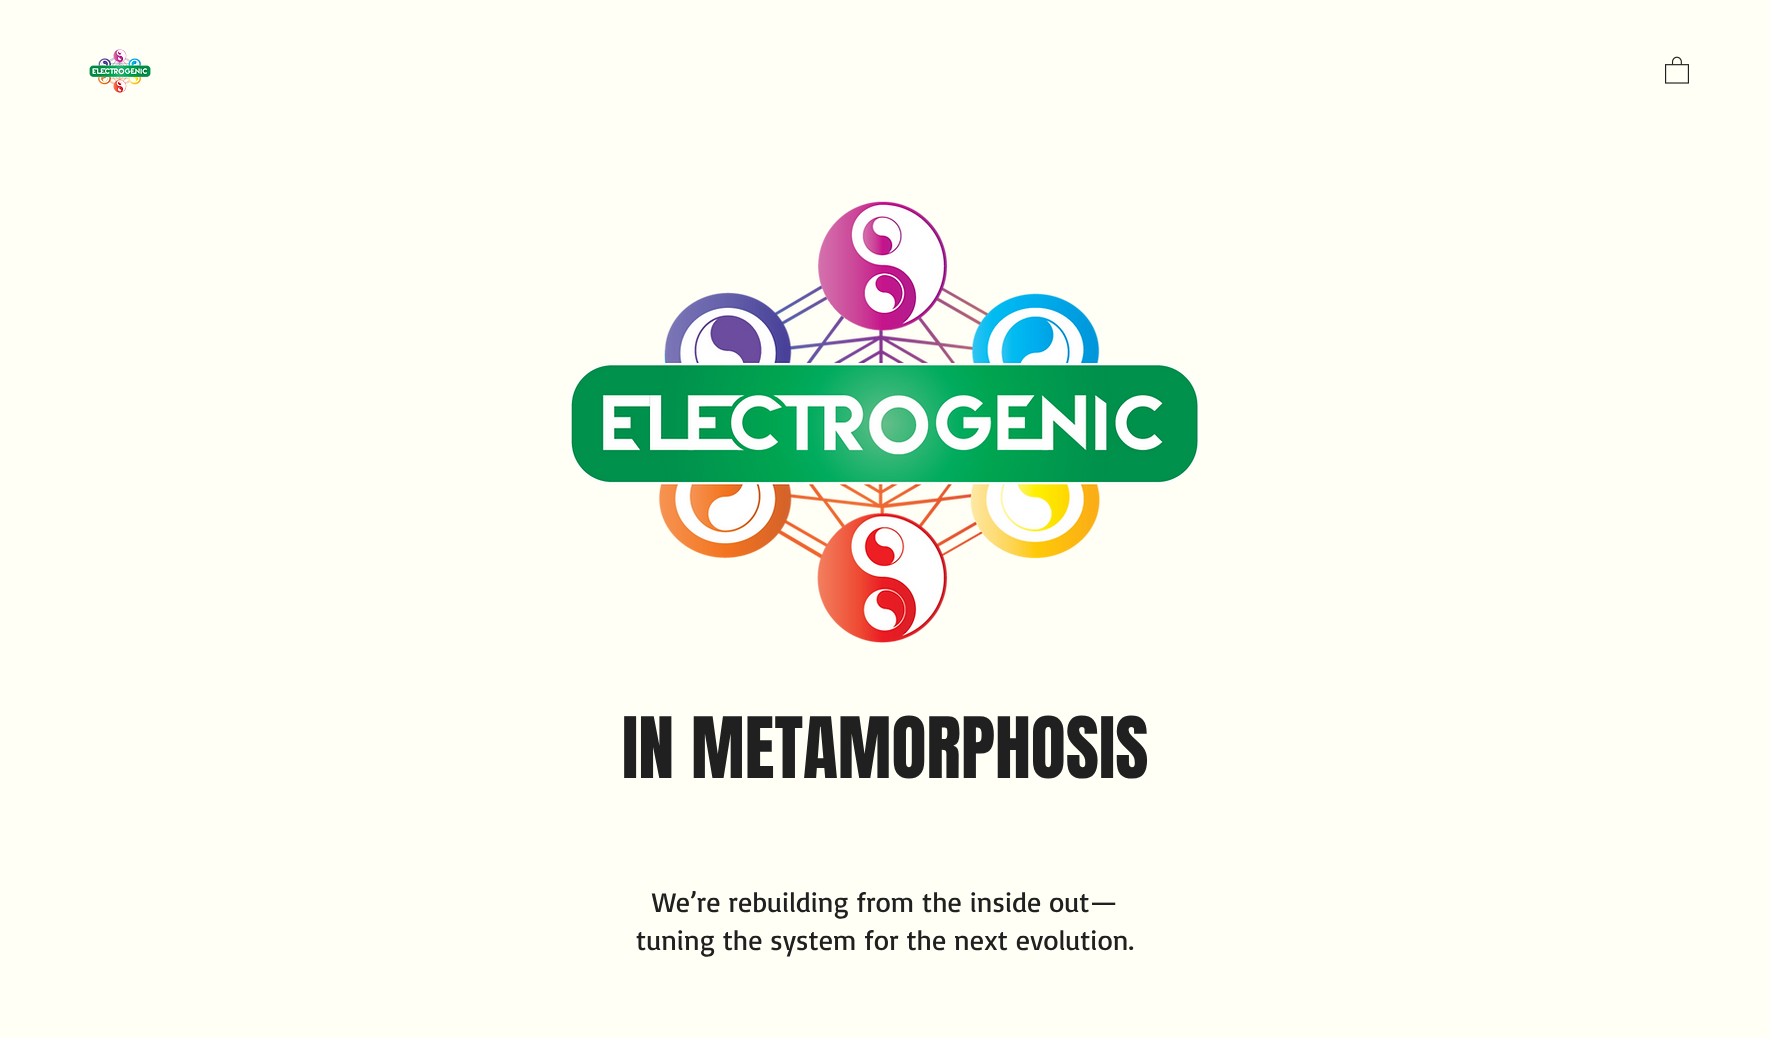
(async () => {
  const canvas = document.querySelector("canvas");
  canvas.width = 1770;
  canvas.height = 1038;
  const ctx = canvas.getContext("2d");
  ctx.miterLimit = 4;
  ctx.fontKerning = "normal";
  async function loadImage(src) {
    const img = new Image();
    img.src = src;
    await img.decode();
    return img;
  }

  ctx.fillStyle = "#fffff6";
  ctx.fillRect(0, 0, 1770, 1038);
  ctx.drawImage(await loadImage("img/1.png"), 89, 49, 62, 44);
  ctx.drawImage(await loadImage("img/2.png"), 1665, 56, 24, 28);
  ctx.drawImage(await loadImage("img/3.png"), 570, 201, 630, 442);
  ctx.font = "72px Anton";
  ctx.fillStyle = "#202020";
  ctx.fillText("IN METAMORPHOSIS", 622, 778);
  ctx.font = "28px Basic";
  ctx.fillText("We’re rebuilding from the inside out—", 652, 912);
  ctx.fillText("tuning the system for the next evolution.", 636, 950);
})();
